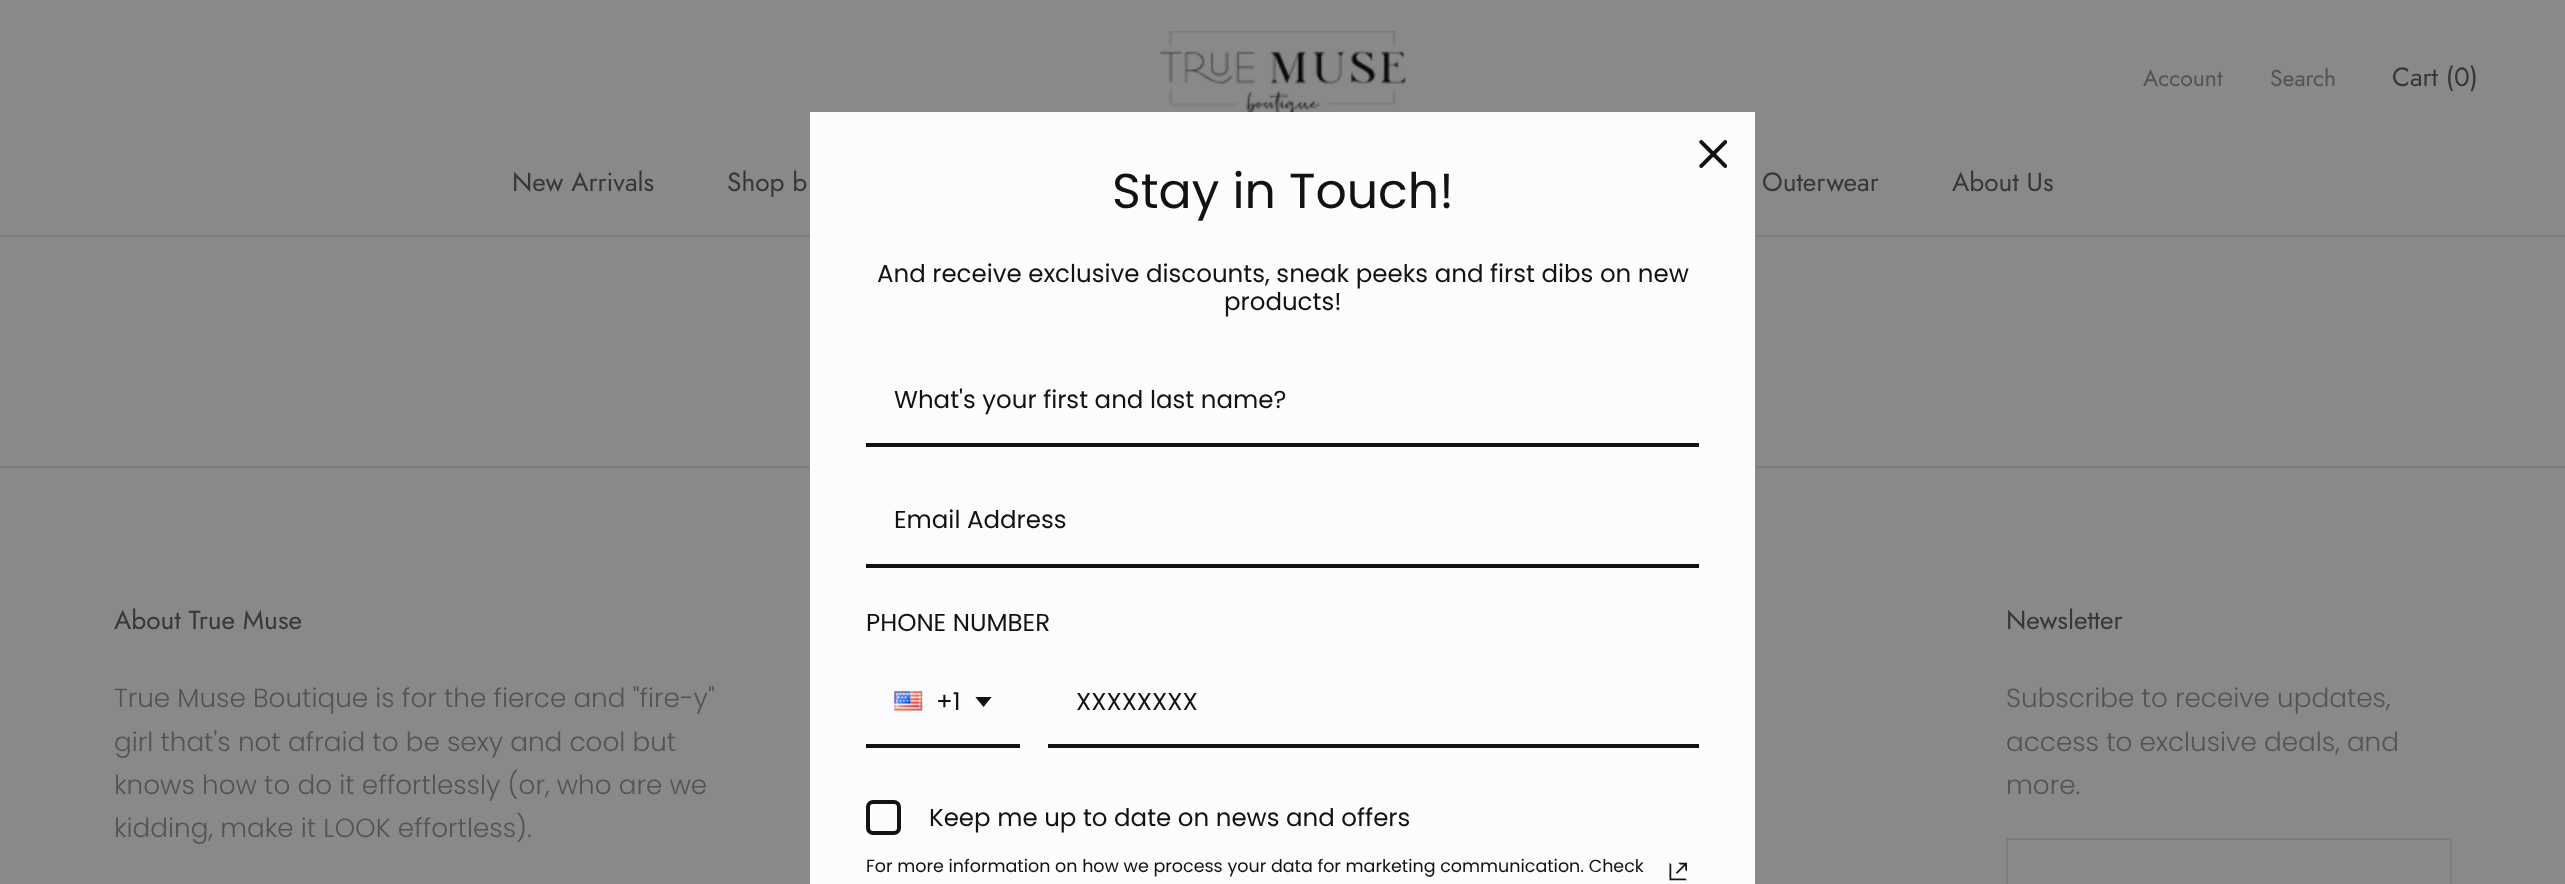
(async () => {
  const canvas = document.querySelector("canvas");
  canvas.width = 2565;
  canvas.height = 884;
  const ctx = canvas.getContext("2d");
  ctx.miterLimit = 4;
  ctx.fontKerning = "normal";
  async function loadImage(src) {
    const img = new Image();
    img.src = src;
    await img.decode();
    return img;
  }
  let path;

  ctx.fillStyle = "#898989";
  ctx.fillRect(0, 0, 2565, 884);
  ctx.fillStyle = "#7d7d7d";
  ctx.fillRect(0, 235, 2565, 2);
  ctx.drawImage(await loadImage("img/1.png"), 1160, 31, 246, 81);
  ctx.fillRect(0, 466, 2565, 2);
  ctx.strokeStyle = "#7d7d7d";
  ctx.lineWidth = 2;
  ctx.strokeRect(2007, 839, 444, 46);
  ctx.fillStyle = "#fcfcff";
  ctx.fillRect(810, 112, 945, 772);
  ctx.drawImage(await loadImage("img/2.png"), 1699, 140, 28, 28);
  for (const [x, y, w, h, color] of [
    [866, 443, 833, 4, "#121212"],
    [866, 564, 833, 4, "#121212"],
    [866, 744, 154, 4, "#121212"],
  ]) {
    ctx.fillStyle = color;
    ctx.fillRect(x, y, w, h);
  }
  ctx.drawImage(await loadImage("img/3.png"), 894, 691, 29, 20);
  ctx.save();
  ctx.beginPath();
  ctx.rect(975, 697, 17, 10);
  ctx.clip();
  path = new Path2D("M975 696.5H992L983.5 707Z");
  ctx.fill(path, "evenodd");
  ctx.restore();
  ctx.fillRect(1048, 744, 651, 4);
  ctx.beginPath();
  ctx.roundRect(868, 802, 31, 31, 5);
  ctx.strokeStyle = "#121212";
  ctx.lineWidth = 4;
  ctx.stroke();
  ctx.drawImage(await loadImage("img/4.png"), 1669, 862, 18, 19);
  ctx.font = "23px Jost";
  ctx.fillStyle = "#535353";
  ctx.fillText("Account", 2143, 86);
  ctx.fillText("Search", 2270, 86);
  ctx.font = "26.25px Jost";
  ctx.fillStyle = "#373737";
  for (const [text, x, y] of [
    ["Cart (0)", 2392, 86],
    ["New Arrivals", 512, 191],
    ["Shop b", 727, 191],
    ["Outerwear", 1762, 191],
    ["About Us", 1952, 191],
    ["About True Muse", 114, 629],
  ]) {
    ctx.fillText(text, x, y);
  }
  ctx.font = "300 26.25px Poppins";
  ctx.fillStyle = "#535353";
  for (const [text, x, y] of [
    ["True Muse Boutique is for the fierce and \"fire-y\"", 114, 707],
    ["girl that's not afraid to be sexy and cool but", 114, 751],
    ["knows how to do it effortlessly (or, who are we", 114, 794],
    ["kidding, make it LOOK effortless).", 114, 837],
  ]) {
    ctx.fillText(text, x, y);
  }
  ctx.font = "26.25px Jost";
  ctx.fillStyle = "#373737";
  ctx.fillText("Newsletter", 2006, 629);
  ctx.font = "300 26.25px Poppins";
  ctx.fillStyle = "#535353";
  for (const [text, x, y] of [
    ["Subscribe to receive updates,", 2006, 707],
    ["access to exclusive deals, and", 2006, 751],
    ["more.", 2006, 794],
  ]) {
    ctx.fillText(text, x, y);
  }
  ctx.font = "49px Poppins";
  ctx.fillStyle = "#121212";
  ctx.fillText("Stay in Touch!", 1112, 208);
  ctx.font = "24.5px Poppins";
  for (const [text, x, y] of [
    ["And receive exclusive discounts, sneak peeks and first dibs on new", 877, 282],
    ["products!", 1224, 310],
    ["What's your first and last name?", 894, 408],
    ["Email Address", 894, 528],
    ["PHONE NUMBER", 866, 631],
    ["+1", 936, 710],
    ["XXXXXXXX", 1076, 710],
    ["Keep me up to date on news and offers", 929, 826],
  ]) {
    ctx.fillText(text, x, y);
  }
  ctx.font = "17.5px Poppins";
  ctx.fillText("For more information on how we process your data for marketing communication. Check", 866, 872);
})();
